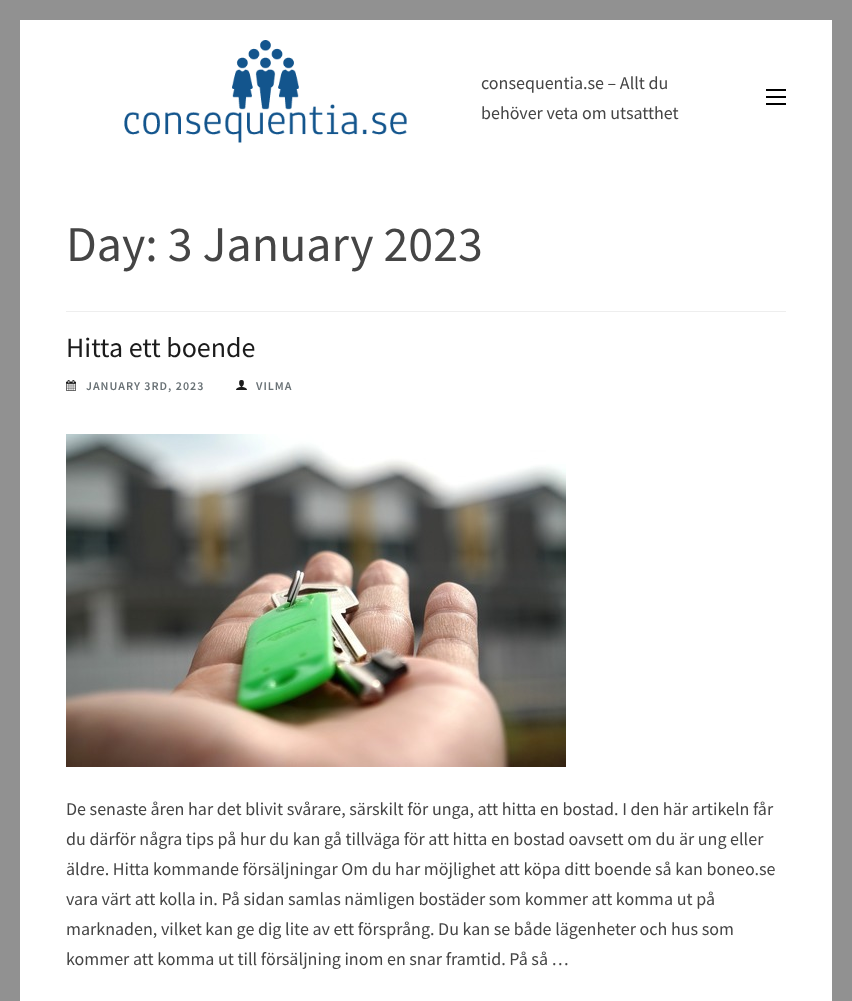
(async () => {
  const canvas = document.querySelector("canvas");
  canvas.width = 852;
  canvas.height = 1001;
  const ctx = canvas.getContext("2d");
  ctx.miterLimit = 4;
  ctx.fontKerning = "normal";
  async function loadImage(src) {
    const img = new Image();
    img.src = src;
    await img.decode();
    return img;
  }

  ctx.fillStyle = "#919191";
  ctx.fillRect(0, 0, 852, 1001);
  ctx.fillStyle = "#ffffff";
  ctx.fillRect(20, 20, 812, 981);
  ctx.drawImage(await loadImage("img/1.png"), 124, 40, 283, 103);
  for (const [x, y, w, h, color] of [
    [766, 89, 20, 2, "#000000"],
    [766, 96, 20, 2, "#000000"],
    [766, 103, 20, 2, "#000000"],
    [66, 311, 720, 1, "#eeeeee"],
  ]) {
    ctx.fillStyle = color;
    ctx.fillRect(x, y, w, h);
  }
  ctx.drawImage(await loadImage("img/2.png"), 66, 380, 10, 11);
  ctx.drawImage(await loadImage("img/3.png"), 236, 380, 11, 10);
  ctx.drawImage(await loadImage("img/4.png"), 66, 434, 500, 333);
  ctx.font = "18px Source Sans Pro";
  ctx.fillStyle = "#454545";
  ctx.fillText("consequentia.se – Allt du", 481, 89);
  ctx.fillText("behöver veta om utsatthet", 481, 119);
  ctx.font = "50px Source Sans Pro";
  ctx.fillText("Day: 3 January 2023", 66, 261);
  ctx.font = "28px Source Sans Pro";
  ctx.fillStyle = "#1b1b1b";
  ctx.fillText("Hitta ett boende", 66, 357);
  ctx.letterSpacing = "1px";
  ctx.font = "600 12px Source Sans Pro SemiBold";
  ctx.fillStyle = "#697175";
  ctx.fillText("JANUARY 3RD, 2023", 86, 390);
  ctx.fillText("VILMA", 256, 390);
  ctx.letterSpacing = "0px";
  ctx.font = "18px Source Sans Pro";
  ctx.fillStyle = "#454545";
  for (const [text, x, y] of [
    ["De senaste åren har det blivit svårare, särskilt för unga, att hitta en bostad. I den här artikeln får", 66, 815],
    ["du därför några tips på hur du kan gå tillväga för att hitta en bostad oavsett om du är ung eller", 66, 845],
    ["äldre. Hitta kommande försäljningar Om du har möjlighet att köpa ditt boende så kan boneo.se", 66, 875],
    ["vara värt att kolla in. På sidan samlas nämligen bostäder som kommer att komma ut på", 66, 905],
    ["marknaden, vilket kan ge dig lite av ett försprång. Du kan se både lägenheter och hus som", 66, 935],
    ["kommer att komma ut till försäljning inom en snar framtid. På så …", 66, 965],
  ]) {
    ctx.fillText(text, x, y);
  }
})();
